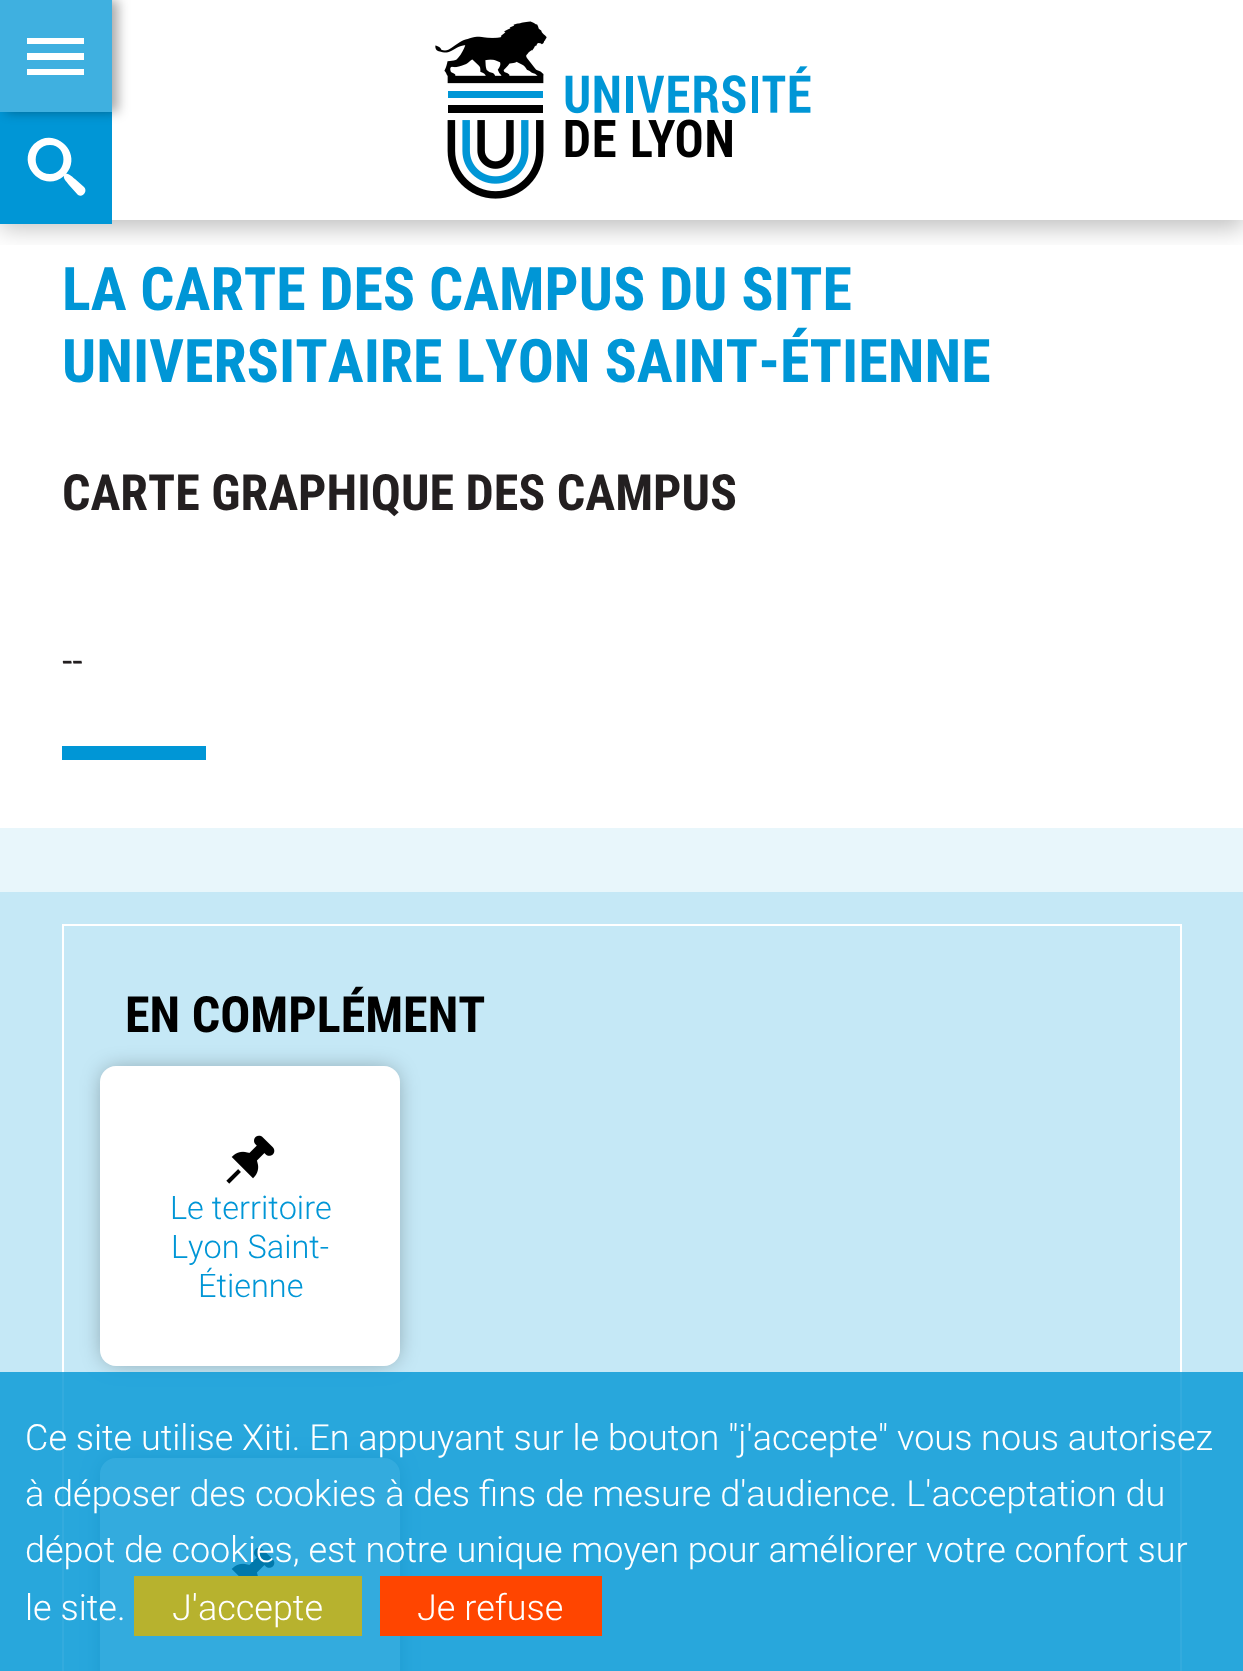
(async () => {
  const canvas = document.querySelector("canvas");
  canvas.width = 1243;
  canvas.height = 1671;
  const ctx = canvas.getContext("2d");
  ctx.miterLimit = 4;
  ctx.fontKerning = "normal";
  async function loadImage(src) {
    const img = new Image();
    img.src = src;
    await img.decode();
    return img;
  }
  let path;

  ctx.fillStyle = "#ffffff";
  ctx.fillRect(0, 0, 1243, 1671);
  ctx.save();
  ctx.beginPath();
  ctx.rect(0, 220, 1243, 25);
  ctx.clip();
  ctx.fillStyle = "rgba(0, 0, 0, 0.25)";
  ctx.filter = "blur(12px)";
  ctx.beginPath();
  ctx.rect(0, 8, 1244, 220);
  ctx.fill();
  ctx.filter = "none";
  ctx.restore();
  ctx.fillStyle = "#0096d6";
  ctx.fillRect(0, 112, 112, 112);
  ctx.fillStyle = "rgba(0, 0, 0, 0.34)";
  ctx.filter = "blur(6px)";
  ctx.beginPath();
  ctx.rect(6, 0, 112, 112);
  ctx.fill();
  ctx.filter = "none";
  ctx.fillStyle = "#3fb0e0";
  ctx.fillRect(0, 0, 112, 112);
  ctx.fillStyle = "#ffffff";
  path = new Path2D("M27 38H84V44H27ZM27 60V53H84V60ZM27 75V69H84V75Z");
  ctx.fill(path);
  ctx.drawImage(await loadImage("img/1.png"), 63, 661, 19, 3);
  for (const [x, y, w, h, color] of [
    [62, 746, 144, 14, "#0096d6"],
    [0, 828, 1243, 64, "#e8f6fb"],
    [0, 892, 1243, 779, "#c5e8f6"],
  ]) {
    ctx.fillStyle = color;
    ctx.fillRect(x, y, w, h);
  }
  ctx.strokeStyle = "#ffffff";
  ctx.lineWidth = 2;
  ctx.strokeRect(63, 925, 1118, 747);
  ctx.fillStyle = "rgba(0, 0, 0, 0.35)";
  ctx.filter = "blur(11px)";
  ctx.beginPath();
  ctx.roundRect(104, 1070, 292, 292, 12);
  ctx.fill();
  ctx.filter = "none";
  ctx.fillStyle = "#ffffff";
  ctx.beginPath();
  ctx.roundRect(100, 1066, 300, 300, 16);
  ctx.fill();
  ctx.drawImage(await loadImage("img/2.png"), 226, 1135, 49, 49);
  ctx.fillStyle = "rgba(0, 0, 0, 0.35)";
  ctx.filter = "blur(11px)";
  ctx.beginPath();
  ctx.roundRect(104, 1462, 292, 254, 12);
  ctx.fill();
  ctx.filter = "none";
  ctx.fillStyle = "#ffffff";
  ctx.beginPath();
  ctx.roundRect(100, 1458, 300, 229, 16);
  ctx.fill();
  ctx.drawImage(await loadImage("img/3.png"), 231, 1547, 44, 29);
  ctx.drawImage(await loadImage("img/4.png"), 435, 21, 376, 178);
  path = new Path2D("M84 187L75 179C73 178 69 173 66 174C84 153 54 125 34 144C15 164 43 194 64 176C63 179 68 183 69 185L78 195C83 198 88 191 84 187ZM50 174C31 174 31 145 50 145C68 145 68 174 50 174Z");
  ctx.fill(path);
  for (const [x, y, w, h, color] of [
    [0, 1372, 1243, 299, "rgba(0, 150, 214, 0.8)"],
    [134, 1576, 228, 60, "#b7b22e"],
    [380, 1576, 222, 60, "#ff4500"],
  ]) {
    ctx.fillStyle = color;
    ctx.fillRect(x, y, w, h);
  }
  ctx.font = "bold 60px Roboto Condensed";
  ctx.fillStyle = "#0096d6";
  ctx.fillText("LA CARTE DES CAMPUS DU SITE", 62, 310);
  ctx.fillText("UNIVERSITAIRE LYON SAINT-ÉTIENNE", 62, 382);
  ctx.font = "bold 50px Roboto Condensed";
  ctx.fillStyle = "#231f20";
  ctx.fillText("CARTE GRAPHIQUE DES CAMPUS", 62, 510);
  ctx.font = "300 36px Roboto";
  ctx.fillText("--", 62, 673);
  ctx.font = "bold 50px Roboto Condensed";
  ctx.fillStyle = "#000000";
  ctx.fillText("EN COMPLÉMENT", 125, 1032);
  ctx.font = "300 32.5px Roboto";
  ctx.fillStyle = "#0096d6";
  for (const [text, x, y] of [
    ["Le territoire", 170, 1219],
    ["Lyon Saint-", 171, 1258],
    ["Étienne", 198, 1297],
  ]) {
    ctx.fillText(text, x, y);
  }
  ctx.font = "300 36px Roboto";
  ctx.fillStyle = "#ffffff";
  for (const [text, x, y] of [
    ["Ce site utilise Xiti. En appuyant sur le bouton \"j'accepte\" vous nous autorisez", 25, 1450],
    ["à déposer des cookies à des fins de mesure d'audience. L'acceptation du", 25, 1506],
    ["dépot de cookies, est notre unique moyen pour améliorer votre confort sur", 25, 1562],
    ["le site.", 25, 1620],
    ["J'accepte", 172, 1620],
    ["Je refuse", 417, 1620],
  ]) {
    ctx.fillText(text, x, y);
  }
})();
